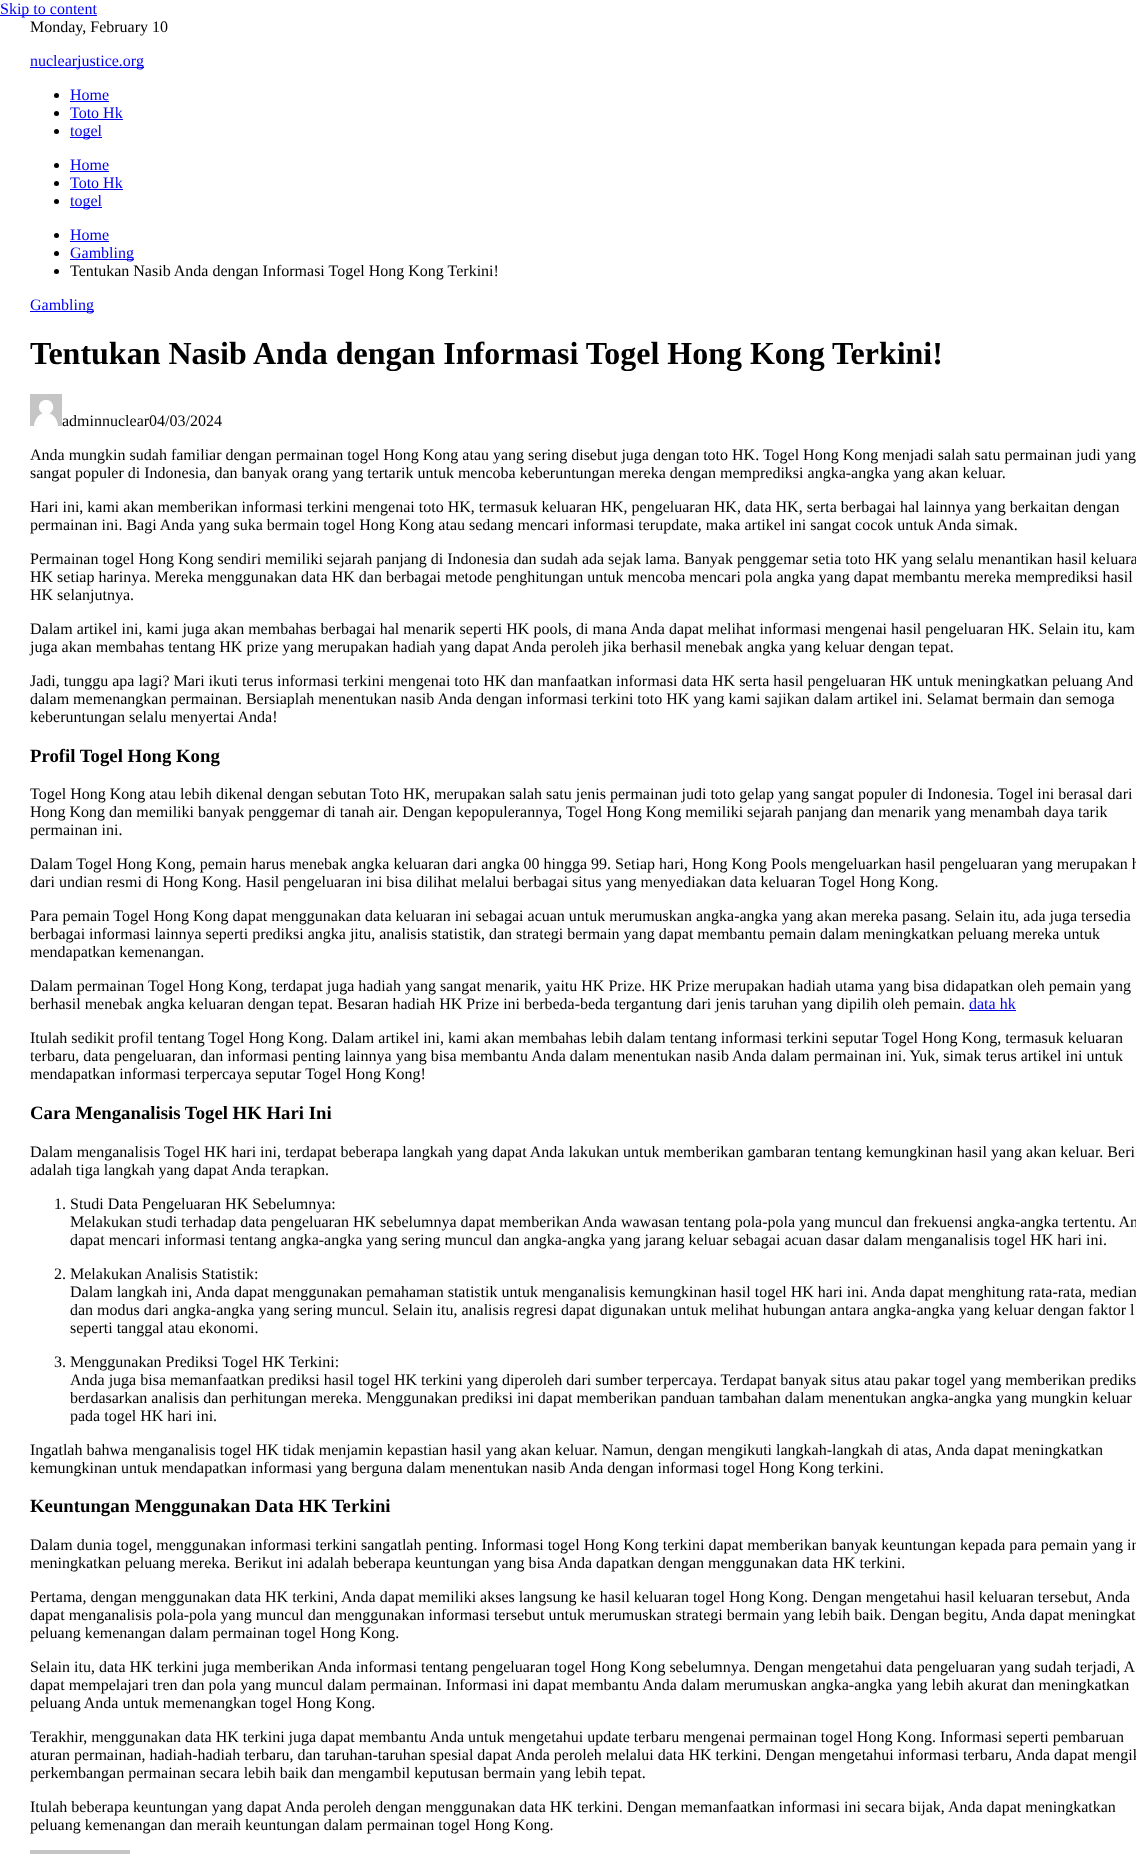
(async () => {
  const canvas = document.querySelector("canvas");
  canvas.width = 1136;
  canvas.height = 1854;
  const ctx = canvas.getContext("2d");
  ctx.miterLimit = 4;
  ctx.fontKerning = "normal";
  async function loadImage(src) {
    const img = new Image();
    img.src = src;
    await img.decode();
    return img;
  }

  ctx.fillStyle = "#ffffff";
  ctx.fillRect(0, 0, 1136, 1854);
  ctx.fillStyle = "#0000ee";
  ctx.fillRect(0, 15, 97, 1);
  ctx.fillRect(30, 67, 114, 1);
  ctx.fillStyle = "#000000";
  ctx.beginPath();
  ctx.arc(56.5, 95.5, 2.5, 0, Math.PI * 2);
  ctx.fill();
  ctx.fillStyle = "#0000ee";
  ctx.fillRect(70, 101, 39, 1);
  ctx.fillStyle = "#000000";
  ctx.beginPath();
  ctx.arc(56.5, 113.5, 2.5, 0, Math.PI * 2);
  ctx.fill();
  ctx.fillStyle = "#0000ee";
  ctx.fillRect(70, 119, 53, 1);
  ctx.fillStyle = "#000000";
  ctx.beginPath();
  ctx.arc(56.5, 131.5, 2.5, 0, Math.PI * 2);
  ctx.fill();
  ctx.fillStyle = "#0000ee";
  ctx.fillRect(70, 137, 32, 1);
  ctx.fillStyle = "#000000";
  ctx.beginPath();
  ctx.arc(56.5, 165.5, 2.5, 0, Math.PI * 2);
  ctx.fill();
  ctx.fillStyle = "#0000ee";
  ctx.fillRect(70, 171, 39, 1);
  ctx.fillStyle = "#000000";
  ctx.beginPath();
  ctx.arc(56.5, 183.5, 2.5, 0, Math.PI * 2);
  ctx.fill();
  ctx.fillStyle = "#0000ee";
  ctx.fillRect(70, 189, 53, 1);
  ctx.fillStyle = "#000000";
  ctx.beginPath();
  ctx.arc(56.5, 201.5, 2.5, 0, Math.PI * 2);
  ctx.fill();
  ctx.fillStyle = "#0000ee";
  ctx.fillRect(70, 207, 32, 1);
  ctx.fillStyle = "#000000";
  ctx.beginPath();
  ctx.arc(56.5, 235.5, 2.5, 0, Math.PI * 2);
  ctx.fill();
  ctx.fillStyle = "#0000ee";
  ctx.fillRect(70, 241, 39, 1);
  ctx.fillStyle = "#000000";
  ctx.beginPath();
  ctx.arc(56.5, 253.5, 2.5, 0, Math.PI * 2);
  ctx.fill();
  ctx.fillStyle = "#0000ee";
  ctx.fillRect(70, 259, 64, 1);
  ctx.fillStyle = "#000000";
  ctx.beginPath();
  ctx.arc(56.5, 271.5, 2.5, 0, Math.PI * 2);
  ctx.fill();
  ctx.fillStyle = "#0000ee";
  ctx.fillRect(30, 311, 64, 1);
  ctx.drawImage(await loadImage("img/1.png"), 30, 394, 32, 32);
  ctx.fillRect(969, 1010, 47, 1);
  ctx.fillStyle = "#c5c5c5";
  ctx.fillRect(30, 1850, 100, 4);
  ctx.font = "16px Liberation Serif";
  ctx.fillStyle = "#0000ee";
  ctx.fillText("Skip to content", 0, 14);
  ctx.fillStyle = "#000000";
  ctx.fillText("Monday, February 10", 30, 32);
  ctx.fillStyle = "#0000ee";
  for (const [text, x, y] of [
    ["nuclearjustice.org", 30, 66],
    ["Home", 70, 100],
    ["Toto Hk", 70, 118],
    ["togel", 70, 136],
    ["Home", 70, 170],
    ["Toto Hk", 70, 188],
    ["togel", 70, 206],
    ["Home", 70, 240],
    ["Gambling", 70, 258],
  ]) {
    ctx.fillText(text, x, y);
  }
  ctx.fillStyle = "#000000";
  ctx.fillText("Tentukan Nasib Anda dengan Informasi Togel Hong Kong Terkini!", 70, 276);
  ctx.fillStyle = "#0000ee";
  ctx.fillText("Gambling", 30, 310);
  ctx.font = "bold 32px Liberation Serif";
  ctx.fillStyle = "#000000";
  ctx.fillText("Tentukan Nasib Anda dengan Informasi Togel Hong Kong Terkini!", 30, 364);
  ctx.font = "16px Liberation Serif";
  for (const [text, x, y] of [
    ["adminnuclear04/03/2024", 62, 426],
    ["Anda mungkin sudah familiar dengan permainan togel Hong Kong atau yang sering disebut juga dengan toto HK. Togel Hong Kong menjadi salah satu permainan judi yang", 30, 460],
    ["sangat populer di Indonesia, dan banyak orang yang tertarik untuk mencoba keberuntungan mereka dengan memprediksi angka-angka yang akan keluar.", 30, 478],
    ["Hari ini, kami akan memberikan informasi terkini mengenai toto HK, termasuk keluaran HK, pengeluaran HK, data HK, serta berbagai hal lainnya yang berkaitan dengan", 30, 512],
    ["permainan ini. Bagi Anda yang suka bermain togel Hong Kong atau sedang mencari informasi terupdate, maka artikel ini sangat cocok untuk Anda simak.", 30, 530],
    ["Permainan togel Hong Kong sendiri memiliki sejarah panjang di Indonesia dan sudah ada sejak lama. Banyak penggemar setia toto HK yang selalu menantikan hasil keluara", 30, 564],
    ["HK setiap harinya. Mereka menggunakan data HK dan berbagai metode penghitungan untuk mencoba mencari pola angka yang dapat membantu mereka memprediksi hasil", 30, 582],
    ["HK selanjutnya.", 30, 600],
    ["Dalam artikel ini, kami juga akan membahas berbagai hal menarik seperti HK pools, di mana Anda dapat melihat informasi mengenai hasil pengeluaran HK. Selain itu, kam", 30, 634],
    ["juga akan membahas tentang HK prize yang merupakan hadiah yang dapat Anda peroleh jika berhasil menebak angka yang keluar dengan tepat.", 30, 652],
    ["Jadi, tunggu apa lagi? Mari ikuti terus informasi terkini mengenai toto HK dan manfaatkan informasi data HK serta hasil pengeluaran HK untuk meningkatkan peluang And", 30, 686],
    ["dalam memenangkan permainan. Bersiaplah menentukan nasib Anda dengan informasi terkini toto HK yang kami sajikan dalam artikel ini. Selamat bermain dan semoga", 30, 704],
    ["keberuntungan selalu menyertai Anda!", 30, 722],
  ]) {
    ctx.fillText(text, x, y);
  }
  ctx.font = "bold 18.75px Liberation Serif";
  ctx.fillText("Profil Togel Hong Kong", 30, 762);
  ctx.font = "16px Liberation Serif";
  for (const [text, x, y] of [
    ["Togel Hong Kong atau lebih dikenal dengan sebutan Toto HK, merupakan salah satu jenis permainan judi toto gelap yang sangat populer di Indonesia. Togel ini berasal dari", 30, 799],
    ["Hong Kong dan memiliki banyak penggemar di tanah air. Dengan kepopulerannya, Togel Hong Kong memiliki sejarah panjang dan menarik yang menambah daya tarik", 30, 817],
    ["permainan ini.", 30, 835],
    ["Dalam Togel Hong Kong, pemain harus menebak angka keluaran dari angka 00 hingga 99. Setiap hari, Hong Kong Pools mengeluarkan hasil pengeluaran yang merupakan h", 30, 869],
    ["dari undian resmi di Hong Kong. Hasil pengeluaran ini bisa dilihat melalui berbagai situs yang menyediakan data keluaran Togel Hong Kong.", 30, 887],
    ["Para pemain Togel Hong Kong dapat menggunakan data keluaran ini sebagai acuan untuk merumuskan angka-angka yang akan mereka pasang. Selain itu, ada juga tersedia", 30, 921],
    ["berbagai informasi lainnya seperti prediksi angka jitu, analisis statistik, dan strategi bermain yang dapat membantu pemain dalam meningkatkan peluang mereka untuk", 30, 939],
    ["mendapatkan kemenangan.", 30, 957],
    ["Dalam permainan Togel Hong Kong, terdapat juga hadiah yang sangat menarik, yaitu HK Prize. HK Prize merupakan hadiah utama yang bisa didapatkan oleh pemain yang", 30, 991],
    ["berhasil menebak angka keluaran dengan tepat. Besaran hadiah HK Prize ini berbeda-beda tergantung dari jenis taruhan yang dipilih oleh pemain.", 30, 1009],
  ]) {
    ctx.fillText(text, x, y);
  }
  ctx.fillStyle = "#0000ee";
  ctx.fillText("data hk", 969, 1009);
  ctx.fillStyle = "#000000";
  for (const [text, x, y] of [
    ["Itulah sedikit profil tentang Togel Hong Kong. Dalam artikel ini, kami akan membahas lebih dalam tentang informasi terkini seputar Togel Hong Kong, termasuk keluaran", 30, 1043],
    ["terbaru, data pengeluaran, dan informasi penting lainnya yang bisa membantu Anda dalam menentukan nasib Anda dalam permainan ini. Yuk, simak terus artikel ini untuk", 30, 1061],
    ["mendapatkan informasi terpercaya seputar Togel Hong Kong!", 30, 1079],
  ]) {
    ctx.fillText(text, x, y);
  }
  ctx.font = "bold 18.75px Liberation Serif";
  ctx.fillText("Cara Menganalisis Togel HK Hari Ini", 30, 1119);
  ctx.font = "16px Liberation Serif";
  for (const [text, x, y] of [
    ["Dalam menganalisis Togel HK hari ini, terdapat beberapa langkah yang dapat Anda lakukan untuk memberikan gambaran tentang kemungkinan hasil yang akan keluar. Beri", 30, 1157],
    ["adalah tiga langkah yang dapat Anda terapkan.", 30, 1175],
    ["1. Studi Data Pengeluaran HK Sebelumnya:", 54, 1209],
    ["Melakukan studi terhadap data pengeluaran HK sebelumnya dapat memberikan Anda wawasan tentang pola-pola yang muncul dan frekuensi angka-angka tertentu. An", 70, 1227],
    ["dapat mencari informasi tentang angka-angka yang sering muncul dan angka-angka yang jarang keluar sebagai acuan dasar dalam menganalisis togel HK hari ini.", 70, 1245],
    ["2. Melakukan Analisis Statistik:", 54, 1279],
    ["Dalam langkah ini, Anda dapat menggunakan pemahaman statistik untuk menganalisis kemungkinan hasil togel HK hari ini. Anda dapat menghitung rata-rata, median", 70, 1297],
    ["dan modus dari angka-angka yang sering muncul. Selain itu, analisis regresi dapat digunakan untuk melihat hubungan antara angka-angka yang keluar dengan faktor l", 70, 1315],
    ["seperti tanggal atau ekonomi.", 70, 1333],
    ["3. Menggunakan Prediksi Togel HK Terkini:", 54, 1367],
    ["Anda juga bisa memanfaatkan prediksi hasil togel HK terkini yang diperoleh dari sumber terpercaya. Terdapat banyak situs atau pakar togel yang memberikan prediks", 70, 1385],
    ["berdasarkan analisis dan perhitungan mereka. Menggunakan prediksi ini dapat memberikan panduan tambahan dalam menentukan angka-angka yang mungkin keluar", 70, 1403],
    ["pada togel HK hari ini.", 70, 1421],
    ["Ingatlah bahwa menganalisis togel HK tidak menjamin kepastian hasil yang akan keluar. Namun, dengan mengikuti langkah-langkah di atas, Anda dapat meningkatkan", 30, 1455],
    ["kemungkinan untuk mendapatkan informasi yang berguna dalam menentukan nasib Anda dengan informasi togel Hong Kong terkini.", 30, 1473],
  ]) {
    ctx.fillText(text, x, y);
  }
  ctx.font = "bold 18.75px Liberation Serif";
  ctx.fillText("Keuntungan Menggunakan Data HK Terkini", 30, 1512);
  ctx.font = "16px Liberation Serif";
  for (const [text, x, y] of [
    ["Dalam dunia togel, menggunakan informasi terkini sangatlah penting. Informasi togel Hong Kong terkini dapat memberikan banyak keuntungan kepada para pemain yang in", 30, 1550],
    ["meningkatkan peluang mereka. Berikut ini adalah beberapa keuntungan yang bisa Anda dapatkan dengan menggunakan data HK terkini.", 30, 1568],
    ["Pertama, dengan menggunakan data HK terkini, Anda dapat memiliki akses langsung ke hasil keluaran togel Hong Kong. Dengan mengetahui hasil keluaran tersebut, Anda", 30, 1602],
    ["dapat menganalisis pola-pola yang muncul dan menggunakan informasi tersebut untuk merumuskan strategi bermain yang lebih baik. Dengan begitu, Anda dapat meningkat", 30, 1620],
    ["peluang kemenangan dalam permainan togel Hong Kong.", 30, 1638],
    ["Selain itu, data HK terkini juga memberikan Anda informasi tentang pengeluaran togel Hong Kong sebelumnya. Dengan mengetahui data pengeluaran yang sudah terjadi, A", 30, 1672],
    ["dapat mempelajari tren dan pola yang muncul dalam permainan. Informasi ini dapat membantu Anda dalam merumuskan angka-angka yang lebih akurat dan meningkatkan", 30, 1690],
    ["peluang Anda untuk memenangkan togel Hong Kong.", 30, 1708],
    ["Terakhir, menggunakan data HK terkini juga dapat membantu Anda untuk mengetahui update terbaru mengenai permainan togel Hong Kong. Informasi seperti pembaruan", 30, 1742],
    ["aturan permainan, hadiah-hadiah terbaru, dan taruhan-taruhan spesial dapat Anda peroleh melalui data HK terkini. Dengan mengetahui informasi terbaru, Anda dapat mengik", 30, 1760],
    ["perkembangan permainan secara lebih baik dan mengambil keputusan bermain yang lebih tepat.", 30, 1778],
    ["Itulah beberapa keuntungan yang dapat Anda peroleh dengan menggunakan data HK terkini. Dengan memanfaatkan informasi ini secara bijak, Anda dapat meningkatkan", 30, 1812],
    ["peluang kemenangan dan meraih keuntungan dalam permainan togel Hong Kong.", 30, 1830],
  ]) {
    ctx.fillText(text, x, y);
  }
})();
